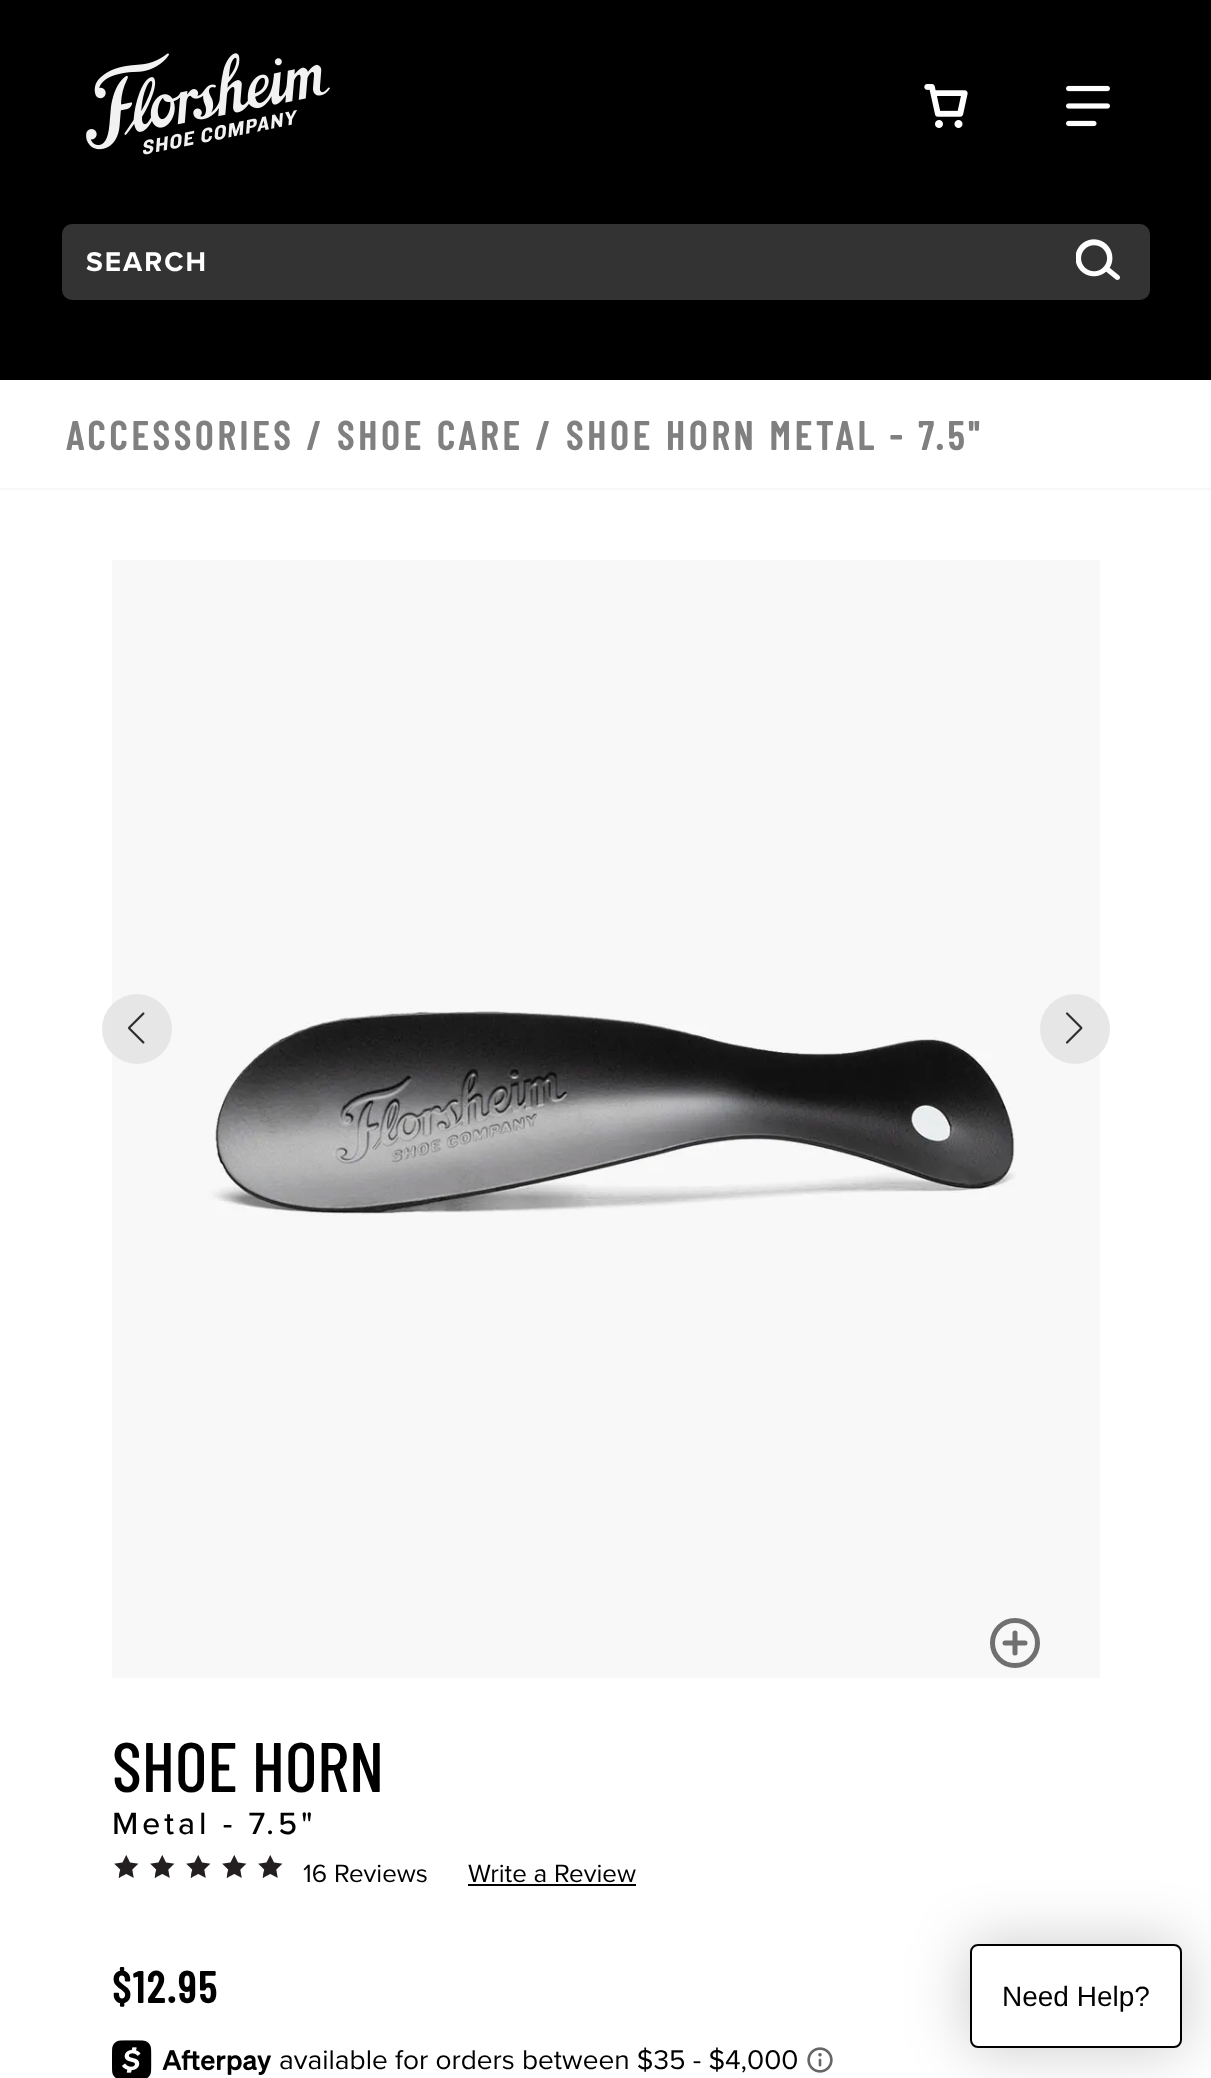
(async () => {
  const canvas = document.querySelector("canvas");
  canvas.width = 1211;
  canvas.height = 2078;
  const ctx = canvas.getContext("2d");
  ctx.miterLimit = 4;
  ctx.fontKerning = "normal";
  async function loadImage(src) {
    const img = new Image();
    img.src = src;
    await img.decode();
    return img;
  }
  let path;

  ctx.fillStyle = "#ffffff";
  ctx.fillRect(0, 0, 1211, 2078);
  ctx.fillStyle = "#000000";
  ctx.fillRect(0, 0, 1211, 380);
  ctx.drawImage(await loadImage("img/1.png"), 86, 53, 244, 102);
  ctx.drawImage(await loadImage("img/2.png"), 924, 84, 44, 44);
  ctx.drawImage(await loadImage("img/3.png"), 1066, 85, 44, 42);
  ctx.fillStyle = "#333333";
  ctx.beginPath();
  ctx.roundRect(62, 224, 1088, 76, 10);
  ctx.fill();
  ctx.drawImage(await loadImage("img/4.png"), 1076, 239, 44, 41);
  ctx.fillStyle = "#f7f7f7";
  ctx.fillRect(0, 488, 1211, 2);
  ctx.drawImage(await loadImage("img/5.png"), 112, 560, 988, 1118);
  ctx.fillStyle = "rgba(225, 225, 225, 0.8)";
  ctx.beginPath();
  ctx.arc(137, 1029, 35, 0, Math.PI * 2);
  ctx.fill();
  ctx.drawImage(await loadImage("img/6.png"), 128, 1012, 17, 32);
  ctx.beginPath();
  ctx.arc(1075, 1029, 35, 0, Math.PI * 2);
  ctx.fill();
  ctx.drawImage(await loadImage("img/7.png"), 1065, 1012, 18, 32);
  ctx.beginPath();
  ctx.arc(1015, 1643, 22.5, 0, Math.PI * 2);
  ctx.strokeStyle = "#707070";
  ctx.lineWidth = 5;
  ctx.stroke();
  path = new Path2D("M1015 1633V1653M1025 1643H1005");
  ctx.lineCap = "round";
  ctx.stroke(path);
  ctx.drawImage(await loadImage("img/8.png"), 114, 1855, 25, 23);
  ctx.drawImage(await loadImage("img/8.png"), 150, 1855, 25, 23);
  ctx.drawImage(await loadImage("img/8.png"), 186, 1855, 25, 23);
  ctx.drawImage(await loadImage("img/8.png"), 222, 1855, 25, 23);
  ctx.drawImage(await loadImage("img/8.png"), 258, 1855, 25, 23);
  ctx.fillStyle = "#000000";
  ctx.fillRect(468, 1884, 168, 2);
  ctx.drawImage(await loadImage("img/9.png"), 112, 2040, 159, 38);
  ctx.drawImage(await loadImage("img/10.png"), 807, 2047, 26, 26);
  ctx.fillStyle = "rgba(0, 0, 0, 0.2)";
  ctx.filter = "blur(30px)";
  ctx.beginPath();
  ctx.roundRect(968, 1942, 216, 108, 10);
  ctx.fill();
  ctx.filter = "none";
  ctx.fillStyle = "#ffffff";
  ctx.beginPath();
  ctx.roundRect(971, 1945, 210, 102, 7);
  ctx.fill();
  ctx.strokeStyle = "#000000";
  ctx.lineWidth = 2;
  ctx.stroke();
  ctx.letterSpacing = "2px";
  ctx.font = "bold 28px Proxima Nova";
  ctx.fillText("SEARCH", 86, 271);
  ctx.letterSpacing = "4px";
  ctx.font = "bold 40px Barlow Condensed";
  ctx.fillStyle = "#808080";
  ctx.fillText("ACCESSORIES / SHOE CARE / SHOE HORN METAL - 7.5\"", 66, 450);
  ctx.letterSpacing = "0px";
  ctx.font = "500 70px Barlow Condensed";
  ctx.fillStyle = "#000000";
  ctx.fillText("SHOE HORN", 112, 1792);
  ctx.letterSpacing = "4px";
  ctx.font = "500 32px Proxima Nova";
  ctx.fillText("Metal - 7.5\"", 112, 1834);
  ctx.letterSpacing = "0px";
  ctx.font = "26px Proxima Nova";
  ctx.fillText("16 Reviews", 303, 1882);
  ctx.fillText("Write a Review", 468, 1882);
  ctx.letterSpacing = "2px";
  ctx.font = "bold 44px Barlow Condensed";
  ctx.fillText("$12.95", 112, 2003);
  ctx.letterSpacing = "0px";
  ctx.font = "28px Proxima Nova";
  ctx.fillText("available for orders between $35 - $4,000", 279, 2069);
  ctx.font = "28px Liberation Sans";
  ctx.fillText("Need Help?", 1002, 2006);
})();
